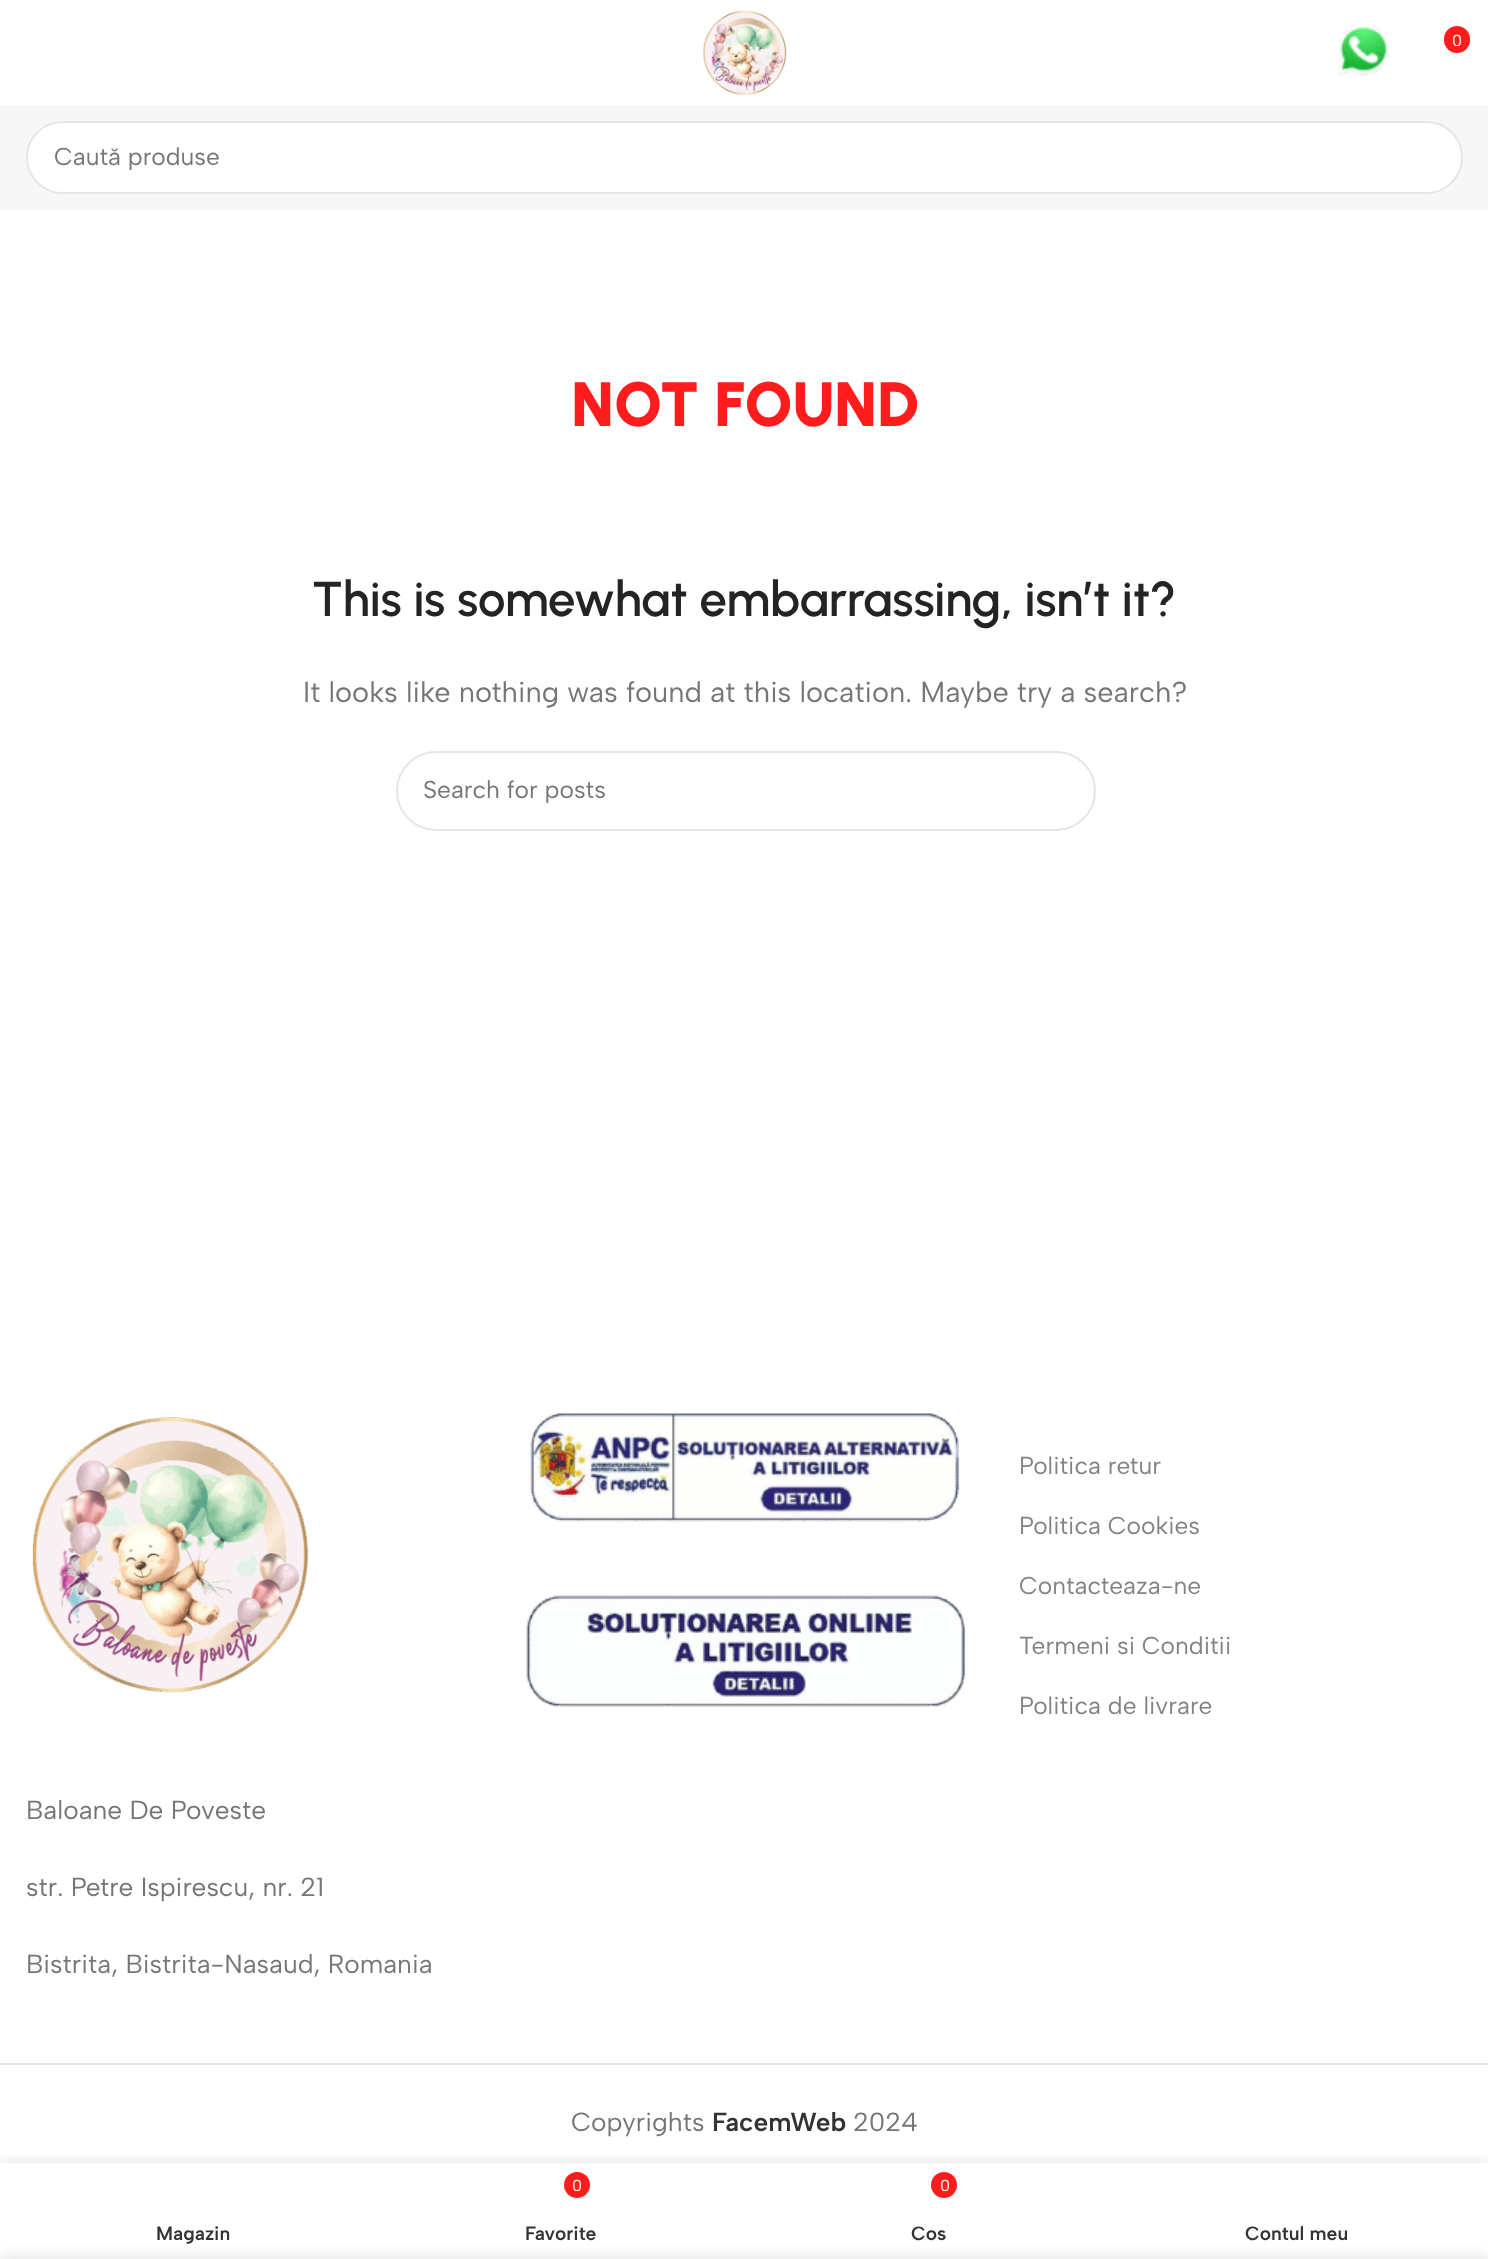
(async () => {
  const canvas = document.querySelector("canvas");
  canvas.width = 1488;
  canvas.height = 2259;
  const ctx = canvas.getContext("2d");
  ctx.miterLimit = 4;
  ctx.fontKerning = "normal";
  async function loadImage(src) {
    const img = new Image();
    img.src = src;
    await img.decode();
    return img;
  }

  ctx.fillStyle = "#ffffff";
  ctx.fillRect(0, 0, 1488, 2259);
  ctx.drawImage(await loadImage("img/1.png"), 703, 10, 84, 85);
  ctx.drawImage(await loadImage("img/2.png"), 1337, 25, 53, 51);
  ctx.fillStyle = "#ff1c1c";
  ctx.beginPath();
  ctx.roundRect(1444, 26, 26, 27, 13);
  ctx.fill();
  ctx.fillStyle = "#f8f7f7";
  ctx.fillRect(0, 105, 1488, 105);
  ctx.fillStyle = "#ffffff";
  ctx.beginPath();
  ctx.roundRect(26, 121, 1437, 73, 36.5);
  ctx.fill();
  ctx.beginPath();
  ctx.roundRect(27, 122, 1435, 71, 35.5);
  ctx.strokeStyle = "rgba(0, 0, 0, 0.1)";
  ctx.lineWidth = 2;
  ctx.stroke();
  ctx.beginPath();
  ctx.roundRect(397, 752, 698, 78, 39);
  ctx.strokeStyle = "#e6e6e6";
  ctx.stroke();
  ctx.drawImage(await loadImage("img/3.png"), 32, 1417, 277, 276);
  ctx.drawImage(await loadImage("img/4.png"), 529, 1413, 431, 110);
  ctx.drawImage(await loadImage("img/5.png"), 526, 1595, 440, 112);
  ctx.fillStyle = "#e4e4e4";
  ctx.fillRect(0, 2063, 1488, 2);
  ctx.save();
  ctx.beginPath();
  ctx.rect(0, 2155, 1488, 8);
  ctx.clip();
  ctx.fillStyle = "rgba(0, 0, 0, 0.12)";
  ctx.filter = "blur(8px)";
  ctx.beginPath();
  ctx.rect(0, 2163, 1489, 96);
  ctx.fill();
  ctx.filter = "none";
  ctx.restore();
  ctx.fillStyle = "#ff1c1c";
  ctx.beginPath();
  ctx.arc(577, 2185, 13, 0, Math.PI * 2);
  ctx.fill();
  ctx.beginPath();
  ctx.arc(944, 2185, 13, 0, Math.PI * 2);
  ctx.fill();
  ctx.fillStyle = "rgba(0, 0, 0, 0.14)";
  ctx.filter = "blur(8px)";
  ctx.beginPath();
  ctx.rect(0, 2259, 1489, 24);
  ctx.fill();
  ctx.filter = "none";
  ctx.font = "16px Albert Sans";
  ctx.fillStyle = "#ffffff";
  ctx.fillText("0", 1452, 46);
  ctx.font = "24.5px Albert Sans";
  ctx.fillStyle = "#767676";
  ctx.fillText("Caută produse", 54, 165);
  ctx.font = "900 62.5px Urbanist";
  ctx.fillStyle = "#ff1c1c";
  ctx.fillText("NOT FOUND", 571, 426);
  ctx.font = "600 49px Urbanist";
  ctx.fillStyle = "#242424";
  ctx.fillText("This is somewhat embarrassing, isn’t it?", 312, 616);
  ctx.font = "28.9px Albert Sans";
  ctx.fillStyle = "#767676";
  ctx.fillText("It looks like nothing was found at this location. Maybe try a search?", 303, 702);
  ctx.font = "24.5px Albert Sans";
  ctx.fillText("Search for posts", 423, 798);
  ctx.fillStyle = "#838383";
  for (const [text, x, y] of [
    ["Politica retur", 1019, 1474],
    ["Politica Cookies", 1019, 1534],
    ["Contacteaza-ne", 1019, 1594],
    ["Termeni si Conditii", 1019, 1654],
    ["Politica de livrare", 1019, 1714],
  ]) {
    ctx.fillText(text, x, y);
  }
  ctx.font = "26.25px Albert Sans";
  ctx.fillStyle = "#767676";
  for (const [text, x, y] of [
    ["Baloane De Poveste", 26, 1819],
    ["str. Petre Ispirescu, nr. 21", 26, 1896],
    ["Bistrita, Bistrita-Nasaud, Romania", 26, 1973],
    ["Copyrights", 571, 2131],
  ]) {
    ctx.fillText(text, x, y);
  }
  ctx.font = "600 26.25px Albert Sans";
  ctx.fillStyle = "#333333";
  ctx.fillText("FacemWeb", 712, 2131);
  ctx.font = "26.25px Albert Sans";
  ctx.fillStyle = "#767676";
  ctx.fillText("2024", 853, 2131);
  ctx.font = "600 19.25px Albert Sans";
  ctx.fillStyle = "#333333";
  ctx.fillText("Magazin", 156, 2240);
  ctx.font = "16px Albert Sans";
  ctx.fillStyle = "#ffffff";
  ctx.fillText("0", 572, 2191);
  ctx.font = "600 19.25px Albert Sans";
  ctx.fillStyle = "#333333";
  ctx.fillText("Favorite", 525, 2240);
  ctx.font = "16px Albert Sans";
  ctx.fillStyle = "#ffffff";
  ctx.fillText("0", 940, 2191);
  ctx.font = "600 19.25px Albert Sans";
  ctx.fillStyle = "#333333";
  ctx.fillText("Cos", 911, 2240);
  ctx.fillText("Contul meu", 1245, 2240);
})();
